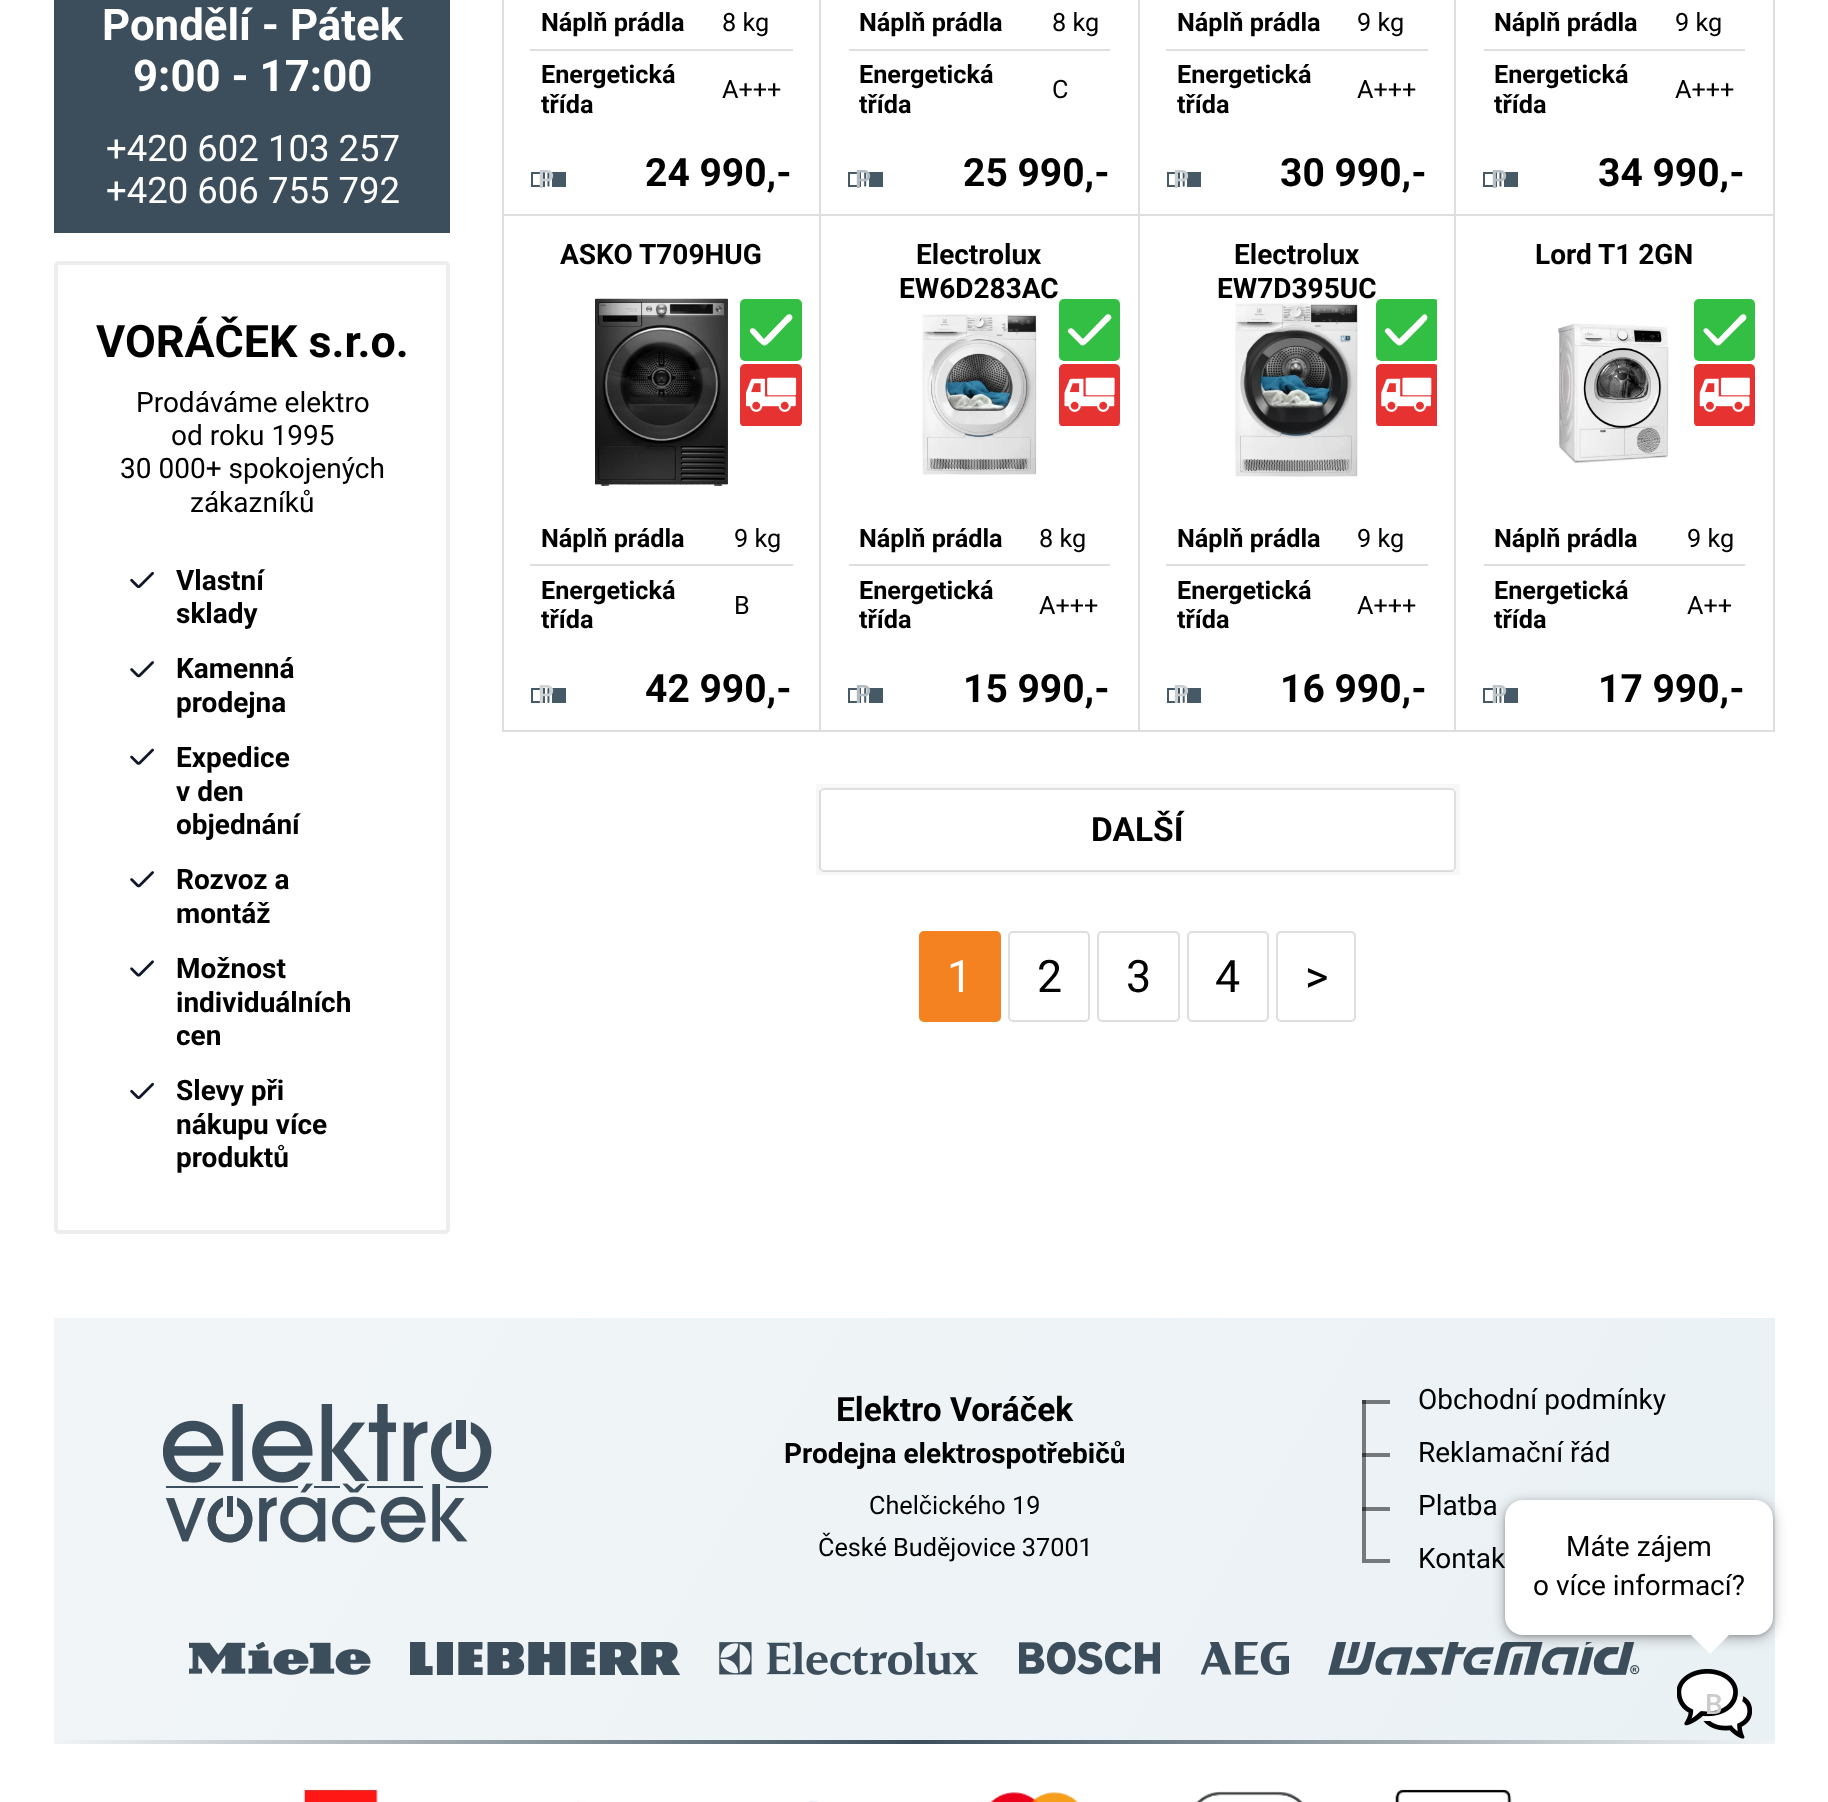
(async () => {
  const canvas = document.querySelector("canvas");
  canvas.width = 1828;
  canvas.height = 1802;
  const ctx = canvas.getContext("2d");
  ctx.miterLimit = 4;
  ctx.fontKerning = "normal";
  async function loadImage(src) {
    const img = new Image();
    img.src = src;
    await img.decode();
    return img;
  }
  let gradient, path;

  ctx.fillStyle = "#ffffff";
  ctx.fillRect(0, 0, 1828, 1802);
  ctx.fillStyle = "#3c4e5b";
  ctx.fillRect(54, 0, 396, 233);
  ctx.beginPath();
  ctx.roundRect(56, 263, 392, 969, 3);
  ctx.strokeStyle = "#ededed";
  ctx.lineWidth = 4;
  ctx.stroke();
  ctx.drawImage(await loadImage("img/1.png"), 130, 571, 24, 18);
  ctx.drawImage(await loadImage("img/2.png"), 130, 661, 24, 17);
  ctx.drawImage(await loadImage("img/3.png"), 130, 748, 24, 17);
  ctx.drawImage(await loadImage("img/2.png"), 130, 871, 24, 17);
  ctx.drawImage(await loadImage("img/4.png"), 130, 960, 24, 17);
  ctx.drawImage(await loadImage("img/1.png"), 130, 1082, 24, 18);
  for (const [x, y, w, h, color] of [
    [502, 0, 2, 732, "#dedede"],
    [819, 0, 2, 215, "#dedede"],
    [504, 214, 317, 2, "#dedede"],
    [530, 49, 263, 2, "#dedede"],
  ]) {
    ctx.fillStyle = color;
    ctx.fillRect(x, y, w, h);
  }
  ctx.drawImage(await loadImage("img/5.png"), 531, 171, 35, 16);
  for (const [x, y, w, h, color] of [
    [1138, 0, 2, 215, "#dedede"],
    [821, 214, 318, 2, "#dedede"],
    [849, 49, 261, 2, "#dedede"],
  ]) {
    ctx.fillStyle = color;
    ctx.fillRect(x, y, w, h);
  }
  ctx.drawImage(await loadImage("img/6.png"), 848, 171, 35, 16);
  for (const [x, y, w, h, color] of [
    [1454, 0, 2, 215, "#dedede"],
    [1139, 214, 317, 2, "#dedede"],
    [1166, 49, 262, 2, "#dedede"],
  ]) {
    ctx.fillStyle = color;
    ctx.fillRect(x, y, w, h);
  }
  ctx.drawImage(await loadImage("img/7.png"), 1167, 171, 34, 16);
  for (const [x, y, w, h, color] of [
    [1773, 0, 2, 215, "#dedede"],
    [1456, 214, 319, 2, "#dedede"],
    [1484, 49, 261, 2, "#dedede"],
  ]) {
    ctx.fillStyle = color;
    ctx.fillRect(x, y, w, h);
  }
  ctx.drawImage(await loadImage("img/5.png"), 1483, 171, 35, 16);
  ctx.fillRect(819, 215, 2, 517);
  ctx.fillRect(504, 730, 317, 2);
  ctx.drawImage(await loadImage("img/8.png"), 595, 298, 133, 188);
  ctx.fillRect(530, 564, 263, 2);
  ctx.drawImage(await loadImage("img/9.png"), 531, 688, 35, 15);
  ctx.fillStyle = "#33bf43";
  ctx.beginPath();
  ctx.roundRect(740, 299, 62, 62, 5);
  ctx.fill();
  ctx.fillStyle = "#ffffff";
  path = new Path2D("M787 315L764 339L755 329C752 327 749 329 750 332L758 341C765 347 764 347 771 341L787 324C789 322 794 319 792 316C791 314 789 314 787 315Z");
  ctx.fill(path, "evenodd");
  ctx.drawImage(await loadImage("img/10.png"), 740, 364, 62, 62);
  ctx.fillStyle = "#dedede";
  ctx.fillRect(1138, 215, 2, 517);
  ctx.fillRect(821, 730, 318, 2);
  ctx.drawImage(await loadImage("img/11.png"), 922, 314, 115, 161);
  ctx.fillRect(849, 564, 261, 2);
  ctx.drawImage(await loadImage("img/12.png"), 848, 688, 35, 15);
  ctx.fillStyle = "#33bf43";
  ctx.beginPath();
  ctx.roundRect(1059, 299, 61, 62, 5);
  ctx.fill();
  ctx.fillStyle = "#ffffff";
  path = new Path2D("M1106 315L1083 339L1073 329C1071 327 1067 329 1068 332L1077 341C1083 347 1082 347 1089 341L1106 324C1107 322 1113 319 1111 316C1110 314 1107 314 1106 315Z");
  ctx.fill(path, "evenodd");
  ctx.drawImage(await loadImage("img/13.png"), 1059, 364, 61, 62);
  ctx.fillStyle = "#dedede";
  ctx.fillRect(1454, 215, 2, 517);
  ctx.fillRect(1139, 730, 317, 2);
  ctx.drawImage(await loadImage("img/14.png"), 1235, 303, 123, 174);
  ctx.fillRect(1166, 564, 262, 2);
  ctx.drawImage(await loadImage("img/15.png"), 1167, 688, 34, 15);
  ctx.save();
  ctx.beginPath();
  ctx.roundRect(1376, 299, 63, 62, 5);
  ctx.clip();
  ctx.fillStyle = "#33bf43";
  ctx.beginPath();
  ctx.roundRect(1376, 299, 61, 62, [5, 0, 0, 5]);
  ctx.fill();
  ctx.restore();
  ctx.fillStyle = "#ffffff";
  path = new Path2D("M1423 315L1399 339L1390 329C1388 327 1384 329 1385 332L1393 341C1400 347 1399 347 1406 341L1423 324C1424 322 1429 319 1427 316C1426 314 1424 314 1423 315Z");
  ctx.fill(path, "evenodd");
  ctx.drawImage(await loadImage("img/16.png"), 1376, 364, 61, 62);
  ctx.fillStyle = "#dedede";
  ctx.fillRect(1773, 215, 2, 517);
  ctx.fillRect(1456, 730, 319, 2);
  ctx.drawImage(await loadImage("img/17.png"), 1558, 323, 111, 141);
  ctx.fillRect(1484, 564, 261, 2);
  ctx.drawImage(await loadImage("img/9.png"), 1483, 688, 35, 15);
  ctx.fillStyle = "#33bf43";
  ctx.beginPath();
  ctx.roundRect(1694, 299, 61, 62, 5);
  ctx.fill();
  ctx.fillStyle = "#ffffff";
  path = new Path2D("M1741 315L1718 339L1708 329C1706 327 1702 329 1704 332L1712 341C1718 347 1718 347 1724 341L1741 324C1743 322 1748 319 1746 316C1745 314 1743 314 1741 315Z");
  ctx.fill(path, "evenodd");
  ctx.drawImage(await loadImage("img/18.png"), 1694, 364, 61, 62);
  ctx.beginPath();
  ctx.roundRect(820, 789, 635, 82, 4);
  ctx.strokeStyle = "#e0e0e0";
  ctx.lineWidth = 2;
  ctx.stroke();
  ctx.strokeStyle = "rgba(0, 0, 0, 0.03)";
  ctx.lineWidth = 4;
  ctx.strokeRect(818, 786, 640, 87);
  ctx.fillStyle = "#f48221";
  ctx.beginPath();
  ctx.roundRect(920, 932, 80, 89, 4);
  ctx.fill();
  ctx.strokeStyle = "#f48221";
  ctx.lineWidth = 2;
  ctx.stroke();
  ctx.beginPath();
  ctx.roundRect(1009, 932, 80, 89, 4);
  ctx.strokeStyle = "#dedede";
  ctx.stroke();
  ctx.beginPath();
  ctx.roundRect(1098, 932, 81, 89, 4);
  ctx.stroke();
  ctx.beginPath();
  ctx.roundRect(1188, 932, 80, 89, 4);
  ctx.stroke();
  ctx.beginPath();
  ctx.roundRect(1277, 932, 78, 89, 4);
  ctx.stroke();
  gradient = ctx.createLinearGradient(177, 1105, 1652, 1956);
  gradient.addColorStop(0, "#f1f5f7");
  gradient.addColorStop(1, "#eaf1f5");
  ctx.fillStyle = gradient;
  ctx.fillRect(54, 1318, 1721, 422);
  gradient = ctx.createLinearGradient(177, 1105, 1652, 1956);
  gradient.addColorStop(0, "#797b7c");
  gradient.addColorStop(1, "#75797b");
  ctx.fillStyle = gradient;
  ctx.fillRect(1362, 1481, 4, 52);
  ctx.fillRect(1362, 1426, 4, 55);
  ctx.fillRect(1362, 1400, 4, 26);
  ctx.drawImage(await loadImage("img/19.png"), 163, 1404, 329, 139);
  for (const [x, y, w, h, color] of [
    [1362, 1400, 28, 4, "#76797b"],
    [1362, 1400, 4, 4, "#3b3d3e"],
    [1362, 1453, 28, 4, "#76797b"],
    [1362, 1453, 4, 4, "#3b3d3e"],
    [1362, 1507, 28, 4, "#76797b"],
    [1362, 1507, 4, 4, "#3b3d3e"],
    [1362, 1533, 4, 26, "#76797b"],
    [1362, 1559, 28, 4, "#76797b"],
  ]) {
    ctx.fillStyle = color;
    ctx.fillRect(x, y, w, h);
  }
  ctx.drawImage(await loadImage("img/20.png"), 189, 1642, 182, 33);
  ctx.drawImage(await loadImage("img/21.png"), 410, 1642, 271, 33);
  ctx.drawImage(await loadImage("img/22.png"), 719, 1642, 259, 33);
  ctx.drawImage(await loadImage("img/23.png"), 1019, 1642, 141, 33);
  ctx.drawImage(await loadImage("img/24.png"), 1201, 1642, 88, 33);
  ctx.drawImage(await loadImage("img/25.png"), 1328, 1642, 312, 33);
  gradient = ctx.createLinearGradient(54, 1741, 1775, 1741);
  gradient.addColorStop(0, "#f0f4f6");
  gradient.addColorStop(0.5, "#3c4e5b");
  gradient.addColorStop(1, "#f0f4f6");
  ctx.fillStyle = gradient;
  ctx.fillRect(54, 1740, 1721, 4);
  ctx.fillStyle = "rgba(0, 0, 0, 0.2)";
  ctx.filter = "blur(2px)";
  ctx.beginPath();
  ctx.roundRect(1505, 1502, 268, 134, 18);
  ctx.fill();
  ctx.filter = "none";
  ctx.fillStyle = "rgba(0, 0, 0, 0.3)";
  ctx.filter = "blur(7px)";
  ctx.beginPath();
  ctx.roundRect(1505, 1503, 268, 135, 18);
  ctx.fill();
  ctx.filter = "none";
  ctx.drawImage(await loadImage("img/26.png"), 1677, 1669, 75, 70);
  ctx.drawImage(await loadImage("img/27.png"), 303, 1789, 1209, 13);
  ctx.font = "bold 43.75px Roboto";
  ctx.fillStyle = "#ffffff";
  ctx.fillText("Pondělí - Pátek", 102, 40);
  ctx.fillText("9:00 - 17:00", 133, 91);
  ctx.font = "36.5px Roboto";
  ctx.fillText("+420 602 103 257", 106, 161);
  ctx.fillText("+420 606 755 792", 106, 203);
  ctx.font = "bold 44.75px Roboto";
  ctx.fillStyle = "#000000";
  ctx.fillText("VORÁČEK s.r.o.", 96, 357);
  ctx.font = "28px Roboto";
  for (const [text, x, y] of [
    ["Prodáváme elektro", 136, 412],
    ["od roku 1995", 171, 445],
    ["30 000+ spokojených", 120, 478],
    ["zákazníků", 190, 512],
  ]) {
    ctx.fillText(text, x, y);
  }
  ctx.font = "bold 28px Roboto";
  for (const [text, x, y] of [
    ["Vlastní", 176, 590],
    ["sklady", 176, 623],
    ["Kamenná", 176, 678],
    ["prodejna", 176, 712],
    ["Expedice", 176, 767],
    ["v den", 176, 801],
    ["objednání", 176, 834],
    ["Rozvoz a", 176, 889],
    ["montáž", 176, 923],
    ["Možnost", 176, 978],
    ["individuálních", 176, 1012],
    ["cen", 176, 1045],
    ["Slevy při", 176, 1100],
    ["nákupu více", 176, 1134],
    ["produktů", 176, 1167],
  ]) {
    ctx.fillText(text, x, y);
  }
  ctx.font = "bold 25.25px Roboto";
  ctx.fillText("Náplň prádla", 541, 31);
  ctx.font = "25.25px Roboto";
  ctx.fillText("8 kg", 722, 31);
  ctx.font = "bold 25.25px Roboto";
  ctx.fillText("Energetická", 541, 83);
  ctx.fillText("třída", 541, 113);
  ctx.font = "25.25px Roboto";
  ctx.fillText("A+++", 722, 98);
  ctx.font = "500 25.25px Roboto";
  ctx.fillStyle = "#c7cdd1";
  ctx.fillText("P", 538, 188);
  ctx.font = "bold 39px Roboto";
  ctx.fillStyle = "#000000";
  ctx.fillText("24 990,-", 645, 186);
  ctx.font = "bold 25.25px Roboto";
  ctx.fillText("Náplň prádla", 859, 31);
  ctx.font = "25.25px Roboto";
  ctx.fillText("8 kg", 1052, 31);
  ctx.font = "bold 25.25px Roboto";
  ctx.fillText("Energetická", 859, 83);
  ctx.fillText("třída", 859, 113);
  ctx.font = "25.25px Roboto";
  ctx.fillText("C", 1052, 98);
  ctx.font = "500 25.25px Roboto";
  ctx.fillStyle = "#b3bbc0";
  ctx.fillText("P", 855, 188);
  ctx.font = "bold 39px Roboto";
  ctx.fillStyle = "#000000";
  ctx.fillText("25 990,-", 963, 186);
  ctx.font = "bold 25.25px Roboto";
  ctx.fillText("Náplň prádla", 1177, 31);
  ctx.font = "25.25px Roboto";
  ctx.fillText("9 kg", 1357, 31);
  ctx.font = "bold 25.25px Roboto";
  ctx.fillText("Energetická", 1177, 83);
  ctx.fillText("třída", 1177, 113);
  ctx.font = "25.25px Roboto";
  ctx.fillText("A+++", 1357, 98);
  ctx.font = "500 25.25px Roboto";
  ctx.fillStyle = "#c7cdd1";
  ctx.fillText("P", 1173, 188);
  ctx.font = "bold 39px Roboto";
  ctx.fillStyle = "#000000";
  ctx.fillText("30 990,-", 1280, 186);
  ctx.font = "bold 25.25px Roboto";
  ctx.fillText("Náplň prádla", 1494, 31);
  ctx.font = "25.25px Roboto";
  ctx.fillText("9 kg", 1675, 31);
  ctx.font = "bold 25.25px Roboto";
  ctx.fillText("Energetická", 1494, 83);
  ctx.fillText("třída", 1494, 113);
  ctx.font = "25.25px Roboto";
  ctx.fillText("A+++", 1675, 98);
  ctx.font = "500 25.25px Roboto";
  ctx.fillStyle = "#b9c0c5";
  ctx.fillText("P", 1491, 188);
  ctx.font = "bold 39px Roboto";
  ctx.fillStyle = "#000000";
  ctx.fillText("34 990,-", 1598, 186);
  ctx.font = "bold 28px Roboto";
  ctx.fillText("ASKO T709HUG", 560, 264);
  ctx.font = "bold 25.25px Roboto";
  ctx.fillText("Náplň prádla", 541, 547);
  ctx.font = "25.25px Roboto";
  ctx.fillText("9 kg", 734, 547);
  ctx.font = "bold 25.25px Roboto";
  ctx.fillText("Energetická", 541, 599);
  ctx.fillText("třída", 541, 628);
  ctx.font = "25.25px Roboto";
  ctx.fillText("B", 734, 614);
  ctx.font = "500 25.25px Roboto";
  ctx.fillStyle = "#ced3d6";
  ctx.fillText("P", 538, 703);
  ctx.font = "bold 39px Roboto";
  ctx.fillStyle = "#000000";
  ctx.fillText("42 990,-", 645, 702);
  ctx.font = "bold 28px Roboto";
  ctx.fillText("Electrolux", 916, 264);
  ctx.fillText("EW6D283AC", 899, 298);
  ctx.font = "bold 25.25px Roboto";
  ctx.fillText("Náplň prádla", 859, 547);
  ctx.font = "25.25px Roboto";
  ctx.fillText("8 kg", 1039, 547);
  ctx.font = "bold 25.25px Roboto";
  ctx.fillText("Energetická", 859, 599);
  ctx.fillText("třída", 859, 628);
  ctx.font = "25.25px Roboto";
  ctx.fillText("A+++", 1039, 614);
  ctx.font = "500 25.25px Roboto";
  ctx.fillStyle = "#b3bbc0";
  ctx.fillText("P", 855, 703);
  ctx.font = "bold 39px Roboto";
  ctx.fillStyle = "#000000";
  ctx.fillText("15 990,-", 963, 702);
  ctx.font = "bold 28px Roboto";
  ctx.fillText("Electrolux", 1234, 264);
  ctx.fillText("EW7D395UC", 1217, 298);
  ctx.font = "bold 25.25px Roboto";
  ctx.fillText("Náplň prádla", 1177, 547);
  ctx.font = "25.25px Roboto";
  ctx.fillText("9 kg", 1357, 547);
  ctx.font = "bold 25.25px Roboto";
  ctx.fillText("Energetická", 1177, 599);
  ctx.fillText("třída", 1177, 628);
  ctx.font = "25.25px Roboto";
  ctx.fillText("A+++", 1357, 614);
  ctx.font = "500 25.25px Roboto";
  ctx.fillStyle = "#c7cdd1";
  ctx.fillText("P", 1173, 703);
  ctx.font = "bold 39px Roboto";
  ctx.fillStyle = "#000000";
  ctx.fillText("16 990,-", 1280, 702);
  ctx.font = "bold 28px Roboto";
  ctx.fillText("Lord T1 2GN", 1535, 264);
  ctx.font = "bold 25.25px Roboto";
  ctx.fillText("Náplň prádla", 1494, 547);
  ctx.font = "25.25px Roboto";
  ctx.fillText("9 kg", 1687, 547);
  ctx.font = "bold 25.25px Roboto";
  ctx.fillText("Energetická", 1494, 599);
  ctx.fillText("třída", 1494, 628);
  ctx.font = "25.25px Roboto";
  ctx.fillText("A++", 1687, 614);
  ctx.font = "500 25.25px Roboto";
  ctx.fillStyle = "#bfc6ca";
  ctx.fillText("P", 1491, 703);
  ctx.font = "bold 39px Roboto";
  ctx.fillStyle = "#000000";
  ctx.fillText("17 990,-", 1598, 702);
  ctx.font = "bold 33.5px Roboto";
  ctx.fillText("DALŠÍ", 1091, 841);
  ctx.font = "44.75px Roboto";
  ctx.fillStyle = "#ffffff";
  ctx.fillText("1", 947, 992);
  ctx.fillStyle = "#000000";
  for (const [text, x, y] of [
    ["2", 1037, 992],
    ["3", 1126, 992],
    ["4", 1215, 992],
    [">", 1305, 992],
  ]) {
    ctx.fillText(text, x, y);
  }
  ctx.font = "bold 33.5px Roboto";
  ctx.fillText("Elektro Voráček", 836, 1421);
  ctx.font = "bold 28px Roboto";
  ctx.fillText("Prodejna elektrospotřebičů", 784, 1463);
  ctx.font = "25.25px Roboto";
  ctx.fillText("Chelčického 19", 869, 1514);
  ctx.fillText("České Budějovice 37001", 818, 1556);
  ctx.font = "28px Roboto";
  for (const [text, x, y] of [
    ["Obchodní podmínky", 1418, 1409],
    ["Reklamační řád", 1418, 1462],
    ["Platba", 1418, 1515],
    ["Kontak", 1418, 1568],
  ]) {
    ctx.fillText(text, x, y);
  }
  ctx.fillStyle = "#ffffff";
  ctx.beginPath();
  ctx.roundRect(1505, 1500, 268, 135, 18);
  ctx.fill();
  ctx.fillStyle = "#000000";
  ctx.fillText("Máte zájem", 1566, 1556);
  ctx.fillText("o více informací?", 1533, 1595);
  ctx.fillStyle = "#ffffff";
  path = new Path2D("M1689 1633H1731L1710 1654Z");
  ctx.fill(path);
  ctx.font = "500 28px Roboto";
  ctx.fillStyle = "#cbcbcb";
  ctx.fillText("B", 1705, 1714);
})();
